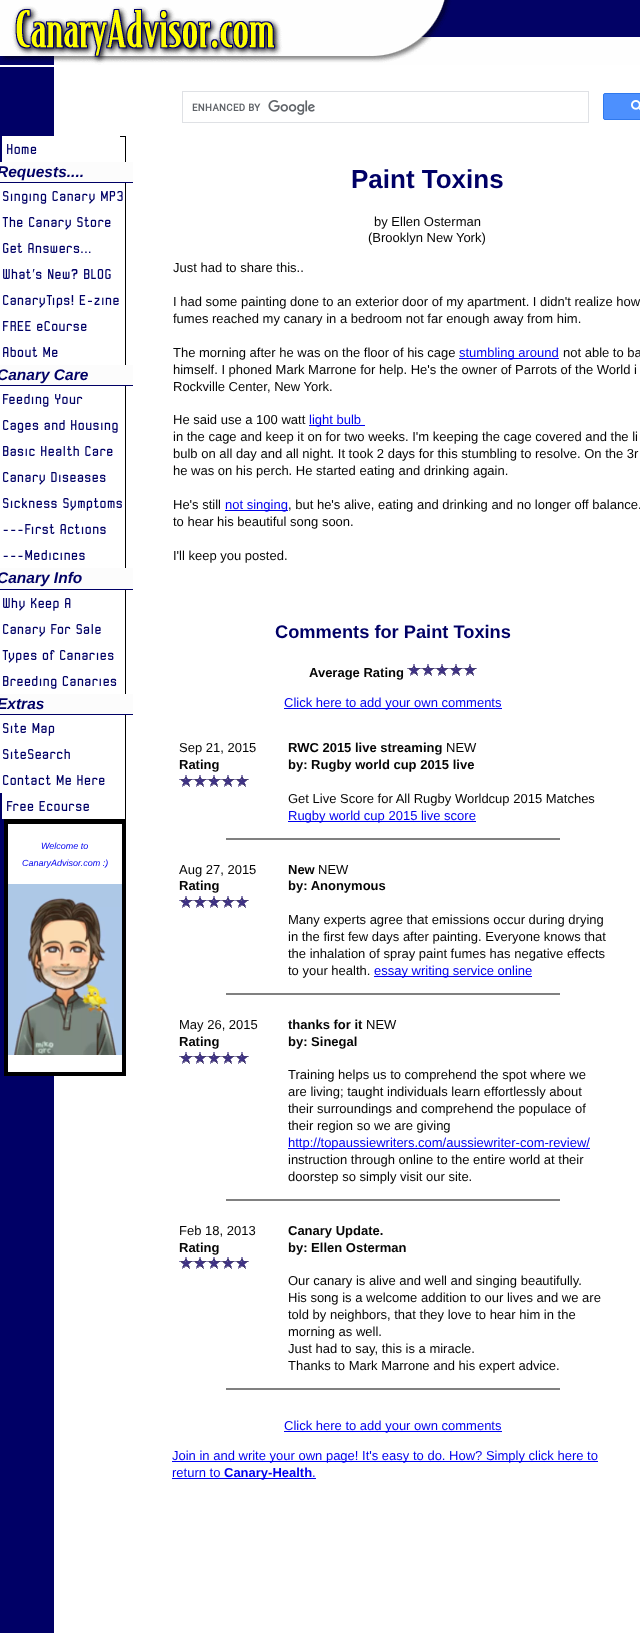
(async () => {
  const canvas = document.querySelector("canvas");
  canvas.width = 640;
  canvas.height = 1633;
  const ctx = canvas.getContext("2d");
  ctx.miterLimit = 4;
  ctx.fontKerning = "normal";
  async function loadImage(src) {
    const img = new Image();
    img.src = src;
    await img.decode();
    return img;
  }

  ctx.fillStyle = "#ffffff";
  ctx.fillRect(0, 0, 640, 1633);
  ctx.drawImage(await loadImage("img/1.png"), 0, 0, 640, 65);
  ctx.fillStyle = "#000066";
  ctx.fillRect(0, 67, 54, 1566);
  ctx.strokeStyle = "#000000";
  ctx.strokeRect(4.5, 136.5, 121, 683);
  for (const [x, y, w, h, color] of [
    [2, 136, 118, 26, "#ffffff"],
    [0, 162, 133, 20, "#fcfcfc"],
    [0, 182, 133, 1, "#000066"],
    [0, 183, 54, 182, "#ffffff"],
    [0, 365, 133, 20, "#fcfcfc"],
    [0, 385, 133, 1, "#000066"],
    [0, 386, 54, 182, "#ffffff"],
    [0, 568, 133, 21, "#fcfcfc"],
    [0, 589, 133, 1, "#000066"],
    [0, 590, 54, 104, "#ffffff"],
    [0, 694, 133, 20, "#fcfcfc"],
    [0, 714, 133, 1, "#000066"],
    [0, 715, 54, 78, "#ffffff"],
    [2, 793, 52, 26, "#ffffff"],
    [8, 824, 46, 248, "#ffffff"],
  ]) {
    ctx.fillStyle = color;
    ctx.fillRect(x, y, w, h);
  }
  ctx.strokeRect(4.5, 820.5, 121, 255);
  ctx.lineWidth = 3;
  ctx.strokeRect(6.5, 822.5, 117, 251);
  ctx.drawImage(await loadImage("img/2.png"), 8, 884, 114, 171);
  ctx.strokeStyle = "#dfe1e5";
  ctx.lineWidth = 1;
  ctx.strokeRect(182.5, 91.5, 406, 31);
  ctx.drawImage(await loadImage("img/3.png"), 192, 100, 123, 15);
  ctx.fillStyle = "#4d90fe";
  ctx.beginPath();
  ctx.roundRect(603.5, 93.5, 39, 26, 1.5);
  ctx.fill();
  ctx.strokeStyle = "#3079ed";
  ctx.stroke();
  ctx.drawImage(await loadImage("img/4.png"), 631, 100, 9, 11);
  for (const [x, y, w, h, color] of [
    [459, 358, 100, 1, "#0000ee"],
    [309, 425, 56, 1, "#0000ee"],
    [225, 510, 63, 1, "#0000ee"],
  ]) {
    ctx.fillStyle = color;
    ctx.fillRect(x, y, w, h);
  }
  ctx.drawImage(await loadImage("img/5.png"), 407, 664, 14, 12);
  ctx.drawImage(await loadImage("img/5.png"), 421, 664, 14, 12);
  ctx.drawImage(await loadImage("img/5.png"), 435, 664, 14, 12);
  ctx.drawImage(await loadImage("img/5.png"), 449, 664, 14, 12);
  ctx.drawImage(await loadImage("img/5.png"), 463, 664, 14, 12);
  ctx.fillRect(284, 708, 218, 1);
  ctx.drawImage(await loadImage("img/5.png"), 179, 775, 14, 12);
  ctx.drawImage(await loadImage("img/5.png"), 193, 775, 14, 12);
  ctx.drawImage(await loadImage("img/5.png"), 207, 775, 14, 12);
  ctx.drawImage(await loadImage("img/5.png"), 221, 775, 14, 12);
  ctx.drawImage(await loadImage("img/5.png"), 235, 775, 14, 12);
  ctx.fillRect(288, 821, 188, 1);
  ctx.fillStyle = "#808080";
  ctx.fillRect(226, 838, 334, 2);
  ctx.drawImage(await loadImage("img/5.png"), 179, 896, 14, 12);
  ctx.drawImage(await loadImage("img/5.png"), 193, 896, 14, 12);
  ctx.drawImage(await loadImage("img/5.png"), 207, 896, 14, 12);
  ctx.drawImage(await loadImage("img/5.png"), 221, 896, 14, 12);
  ctx.drawImage(await loadImage("img/5.png"), 235, 896, 14, 12);
  ctx.fillStyle = "#0000ee";
  ctx.fillRect(374, 976, 158, 1);
  ctx.fillStyle = "#808080";
  ctx.fillRect(226, 993, 334, 2);
  ctx.drawImage(await loadImage("img/5.png"), 179, 1052, 14, 12);
  ctx.drawImage(await loadImage("img/5.png"), 193, 1052, 14, 12);
  ctx.drawImage(await loadImage("img/5.png"), 207, 1052, 14, 12);
  ctx.drawImage(await loadImage("img/5.png"), 221, 1052, 14, 12);
  ctx.drawImage(await loadImage("img/5.png"), 235, 1052, 14, 12);
  ctx.fillStyle = "#0000ee";
  ctx.fillRect(288, 1148, 302, 1);
  ctx.fillStyle = "#808080";
  ctx.fillRect(226, 1199, 334, 2);
  ctx.drawImage(await loadImage("img/5.png"), 179, 1257, 14, 12);
  ctx.drawImage(await loadImage("img/5.png"), 193, 1257, 14, 12);
  ctx.drawImage(await loadImage("img/5.png"), 207, 1257, 14, 12);
  ctx.drawImage(await loadImage("img/5.png"), 221, 1257, 14, 12);
  ctx.drawImage(await loadImage("img/5.png"), 235, 1257, 14, 12);
  for (const [x, y, w, h, color] of [
    [226, 1388, 334, 2, "#808080"],
    [284, 1431, 218, 1, "#0000ee"],
    [172, 1461, 426, 1, "#0000ee"],
    [172, 1478, 144, 1, "#0000ee"],
  ]) {
    ctx.fillStyle = color;
    ctx.fillRect(x, y, w, h);
  }
  ctx.font = "15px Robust";
  ctx.fillStyle = "#000066";
  ctx.fillText("Home", 6, 154);
  ctx.font = "italic bold 15.5px Liberation Sans";
  ctx.fillText("Requests....", -3, 177);
  ctx.font = "15px Robust";
  for (const [text, x, y] of [
    ["Singing Canary MP3", 2, 201],
    ["The Canary Store", 2, 227],
    ["Get Answers...", 2, 253],
    ["What's New? BLOG", 2, 279],
    ["CanaryTips! E-zine", 2, 305],
    ["FREE eCourse", 2, 331],
    ["About Me", 2, 357],
  ]) {
    ctx.fillText(text, x, y);
  }
  ctx.font = "italic bold 15.5px Liberation Sans";
  ctx.fillText("Canary Care", -3, 380);
  ctx.font = "15px Robust";
  for (const [text, x, y] of [
    ["Feeding Your", 2, 404],
    ["Cages and Housing", 2, 430],
    ["Basic Health Care", 2, 456],
    ["Canary Diseases", 2, 482],
    ["Sickness Symptoms", 2, 508],
    ["---First Actions", 2, 534],
    ["---Medicines", 2, 560],
  ]) {
    ctx.fillText(text, x, y);
  }
  ctx.font = "italic bold 15.5px Liberation Sans";
  ctx.fillText("Canary Info", -3, 583);
  ctx.font = "15px Robust";
  for (const [text, x, y] of [
    ["Why Keep A", 2, 608],
    ["Canary For Sale", 2, 634],
    ["Types of Canaries", 2, 660],
    ["Breeding Canaries", 2, 686],
  ]) {
    ctx.fillText(text, x, y);
  }
  ctx.font = "italic bold 15.5px Liberation Sans";
  ctx.fillText("Extras", -3, 709);
  ctx.font = "15px Robust";
  for (const [text, x, y] of [
    ["Site Map", 2, 733],
    ["SiteSearch", 2, 759],
    ["Contact Me Here", 2, 785],
    ["Free Ecourse", 6, 811],
  ]) {
    ctx.fillText(text, x, y);
  }
  ctx.font = "italic 9px Liberation Sans";
  ctx.fillStyle = "#0000ee";
  ctx.fillText("Welcome to", 41, 849);
  ctx.fillText("CanaryAdvisor.com :)", 22, 866);
  ctx.font = "bold 26px Liberation Sans";
  ctx.fillStyle = "#000066";
  ctx.fillText("Paint Toxins", 351, 188);
  ctx.font = "13px Liberation Sans";
  ctx.fillStyle = "#050505";
  for (const [text, x, y] of [
    ["by Ellen Osterman", 374, 226],
    ["(Brooklyn New York)", 368, 242],
    ["Just had to share this..", 173, 272],
    ["I had some painting done to an exterior door of my apartment. I didn't realize how", 173, 306],
    ["fumes reached my canary in a bedroom not far enough away from him.", 173, 323],
    ["The morning after he was on the floor of his cage", 173, 357],
  ]) {
    ctx.fillText(text, x, y);
  }
  ctx.fillStyle = "#0000ee";
  ctx.fillText("stumbling around", 459, 357);
  ctx.fillStyle = "#050505";
  for (const [text, x, y] of [
    ["not able to ba", 563, 357],
    ["himself. I phoned Mark Marrone for help. He's the owner of Parrots of the World i", 173, 374],
    ["Rockville Center, New York.", 173, 391],
    ["He said use a 100 watt", 173, 424],
  ]) {
    ctx.fillText(text, x, y);
  }
  ctx.fillStyle = "#0000ee";
  ctx.fillText("light bulb", 309, 424);
  ctx.fillStyle = "#050505";
  for (const [text, x, y] of [
    ["in the cage and keep it on for two weeks. I'm keeping the cage covered and the li", 173, 441],
    ["bulb on all day and all night. It took 2 days for this stumbling to resolve. On the 3r", 173, 458],
    ["he was on his perch. He started eating and drinking again.", 173, 475],
    ["He's still", 173, 509],
  ]) {
    ctx.fillText(text, x, y);
  }
  ctx.fillStyle = "#0000ee";
  ctx.fillText("not singing", 225, 509);
  ctx.fillStyle = "#050505";
  for (const [text, x, y] of [
    [", but he's alive, eating and drinking and no longer off balance.", 288, 509],
    ["to hear his beautiful song soon.", 173, 526],
    ["I'll keep you posted.", 173, 560],
  ]) {
    ctx.fillText(text, x, y);
  }
  ctx.font = "bold 18.25px Liberation Sans";
  ctx.fillStyle = "#000066";
  ctx.fillText("Comments for Paint Toxins", 275, 638);
  ctx.font = "bold 13px Liberation Sans";
  ctx.fillStyle = "#050505";
  ctx.fillText("Average Rating", 309, 677);
  ctx.font = "13px Liberation Sans";
  ctx.fillStyle = "#0000ee";
  ctx.fillText("Click here to add your own comments", 284, 707);
  ctx.fillStyle = "#050505";
  ctx.fillText("Sep 21, 2015", 179, 752);
  ctx.font = "bold 13px Liberation Sans";
  ctx.fillText("Rating", 179, 769);
  ctx.fillText("RWC 2015 live streaming", 288, 752);
  ctx.font = "13px Liberation Sans";
  ctx.fillText("NEW", 446, 752);
  ctx.font = "bold 13px Liberation Sans";
  ctx.fillText("by: Rugby world cup 2015 live", 288, 769);
  ctx.font = "13px Liberation Sans";
  ctx.fillText("Get Live Score for All Rugby Worldcup 2015 Matches", 288, 803);
  ctx.fillStyle = "#0000ee";
  ctx.fillText("Rugby world cup 2015 live score", 288, 820);
  ctx.fillStyle = "#050505";
  ctx.fillText("Aug 27, 2015", 179, 874);
  ctx.font = "bold 13px Liberation Sans";
  ctx.fillText("Rating", 179, 890);
  ctx.fillText("New", 288, 874);
  ctx.font = "13px Liberation Sans";
  ctx.fillText("NEW", 318, 874);
  ctx.font = "bold 13px Liberation Sans";
  ctx.fillText("by: Anonymous", 288, 890);
  ctx.font = "13px Liberation Sans";
  for (const [text, x, y] of [
    ["Many experts agree that emissions occur during drying", 288, 924],
    ["in the first few days after painting. Everyone knows that", 288, 941],
    ["the inhalation of spray paint fumes has negative effects", 288, 958],
    ["to your health.", 288, 975],
  ]) {
    ctx.fillText(text, x, y);
  }
  ctx.fillStyle = "#0000ee";
  ctx.fillText("essay writing service online", 374, 975);
  ctx.fillStyle = "#050505";
  ctx.fillText("May 26, 2015", 179, 1029);
  ctx.font = "bold 13px Liberation Sans";
  ctx.fillText("Rating", 179, 1046);
  ctx.fillText("thanks for it", 288, 1029);
  ctx.font = "13px Liberation Sans";
  ctx.fillText("NEW", 366, 1029);
  ctx.font = "bold 13px Liberation Sans";
  ctx.fillText("by: Sinegal", 288, 1046);
  ctx.font = "13px Liberation Sans";
  for (const [text, x, y] of [
    ["Training helps us to comprehend the spot where we", 288, 1079],
    ["are living; taught individuals learn effortlessly about", 288, 1096],
    ["their surroundings and comprehend the populace of", 288, 1113],
    ["their region so we are giving", 288, 1130],
  ]) {
    ctx.fillText(text, x, y);
  }
  ctx.fillStyle = "#0000ee";
  ctx.fillText("http://topaussiewriters.com/aussiewriter-com-review/", 288, 1147);
  ctx.fillStyle = "#050505";
  for (const [text, x, y] of [
    ["instruction through online to the entire world at their", 288, 1164],
    ["doorstep so simply visit our site.", 288, 1181],
    ["Feb 18, 2013", 179, 1235],
  ]) {
    ctx.fillText(text, x, y);
  }
  ctx.font = "bold 13px Liberation Sans";
  for (const [text, x, y] of [
    ["Rating", 179, 1252],
    ["Canary Update.", 288, 1235],
    ["by: Ellen Osterman", 288, 1252],
  ]) {
    ctx.fillText(text, x, y);
  }
  ctx.font = "13px Liberation Sans";
  for (const [text, x, y] of [
    ["Our canary is alive and well and singing beautifully.", 288, 1285],
    ["His song is a welcome addition to our lives and we are", 288, 1302],
    ["told by neighbors, that they love to hear him in the", 288, 1319],
    ["morning as well.", 288, 1336],
    ["Just had to say, this is a miracle.", 288, 1353],
    ["Thanks to Mark Marrone and his expert advice.", 288, 1370],
  ]) {
    ctx.fillText(text, x, y);
  }
  ctx.fillStyle = "#0000ee";
  for (const [text, x, y] of [
    ["Click here to add your own comments", 284, 1430],
    ["Join in and write your own page! It's easy to do. How? Simply click here to", 172, 1460],
    ["return to", 172, 1477],
  ]) {
    ctx.fillText(text, x, y);
  }
  ctx.font = "bold 13px Liberation Sans";
  ctx.fillText("Canary-Health", 224, 1477);
  ctx.font = "13px Liberation Sans";
  ctx.fillText(".", 312, 1477);
})();
